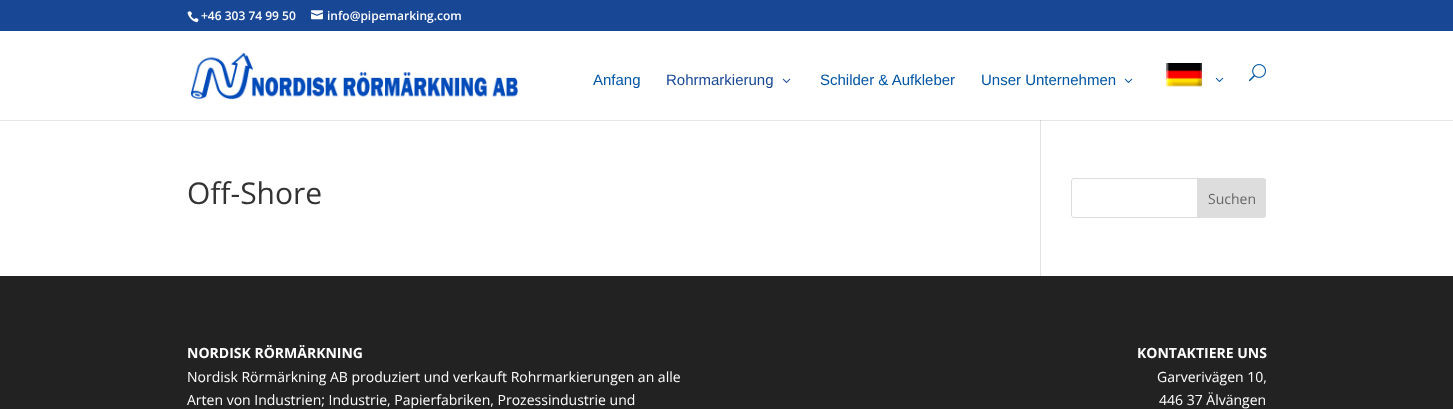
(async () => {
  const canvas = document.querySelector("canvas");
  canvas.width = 1453;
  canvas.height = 409;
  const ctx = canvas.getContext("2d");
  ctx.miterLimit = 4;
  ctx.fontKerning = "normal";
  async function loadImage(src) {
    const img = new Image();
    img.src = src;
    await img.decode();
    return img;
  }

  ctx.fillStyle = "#ffffff";
  ctx.fillRect(0, 0, 1453, 409);
  ctx.fillStyle = "#e6e6e6";
  ctx.fillRect(0, 120, 1453, 1);
  ctx.fillStyle = "#184796";
  ctx.fillRect(0, 0, 1453, 31);
  ctx.drawImage(await loadImage("img/1.png"), 187, 11, 12, 12);
  ctx.drawImage(await loadImage("img/2.png"), 311, 10, 12, 10);
  ctx.drawImage(await loadImage("img/3.png"), 191, 52, 328, 48);
  ctx.drawImage(await loadImage("img/4.png"), 782, 78, 9, 5);
  ctx.drawImage(await loadImage("img/5.png"), 1124, 78, 9, 5);
  ctx.drawImage(await loadImage("img/6.png"), 1166, 63, 36, 24);
  ctx.drawImage(await loadImage("img/5.png"), 1215, 77, 9, 5);
  ctx.drawImage(await loadImage("img/7.png"), 1249, 64, 17, 18);
  ctx.fillStyle = "#e2e2e2";
  ctx.fillRect(1040, 120, 1, 156);
  ctx.fillStyle = "#cbcbcb";
  ctx.fillRect(1040, 120, 1, 1);
  ctx.beginPath();
  ctx.roundRect(1071.5, 178.5, 194, 39, 2.5);
  ctx.strokeStyle = "#dddddd";
  ctx.stroke();
  ctx.fillStyle = "#dddddd";
  ctx.beginPath();
  ctx.roundRect(1197.5, 178.5, 68, 39, [0, 2.5, 2.5, 0]);
  ctx.fill();
  ctx.stroke();
  ctx.fillStyle = "#222222";
  ctx.fillRect(0, 276, 1453, 133);
  ctx.font = "600 12px Open Sans";
  ctx.fillStyle = "#ffffff";
  ctx.fillText("+46 303 74 99 50", 201, 20);
  ctx.fillText("info@pipemarking.com", 327, 20);
  ctx.font = "15px Liberation Sans";
  ctx.fillStyle = "#0055a5";
  ctx.fillText("Anfang", 593, 85);
  ctx.fillStyle = "#184796";
  ctx.fillText("Rohrmarkierung", 666, 85);
  ctx.fillStyle = "#0055a5";
  ctx.fillText("Schilder & Aufkleber", 820, 85);
  ctx.fillText("Unser Unternehmen", 981, 85);
  ctx.font = "30px Open Sans";
  ctx.fillStyle = "#333333";
  ctx.fillText("Off-Shore", 187, 204);
  ctx.font = "14px Open Sans";
  ctx.fillStyle = "#666666";
  ctx.fillText("Suchen", 1208, 204);
  ctx.font = "bold 14px Open Sans";
  ctx.fillStyle = "#ffffff";
  ctx.fillText("NORDISK RÖRMÄRKNING", 187, 358);
  ctx.font = "14px Open Sans";
  ctx.fillText("Nordisk Rörmärkning AB produziert und verkauft Rohrmarkierungen an alle", 187, 382);
  ctx.fillText("Arten von Industrien; Industrie, Papierfabriken, Prozessindustrie und", 187, 405);
  ctx.font = "bold 14px Open Sans";
  ctx.fillText("KONTAKTIERE UNS", 1137, 358);
  ctx.font = "14px Open Sans";
  ctx.fillText("Garverivägen 10,", 1157, 382);
  ctx.fillText("446 37 Älvängen", 1159, 405);
})();
